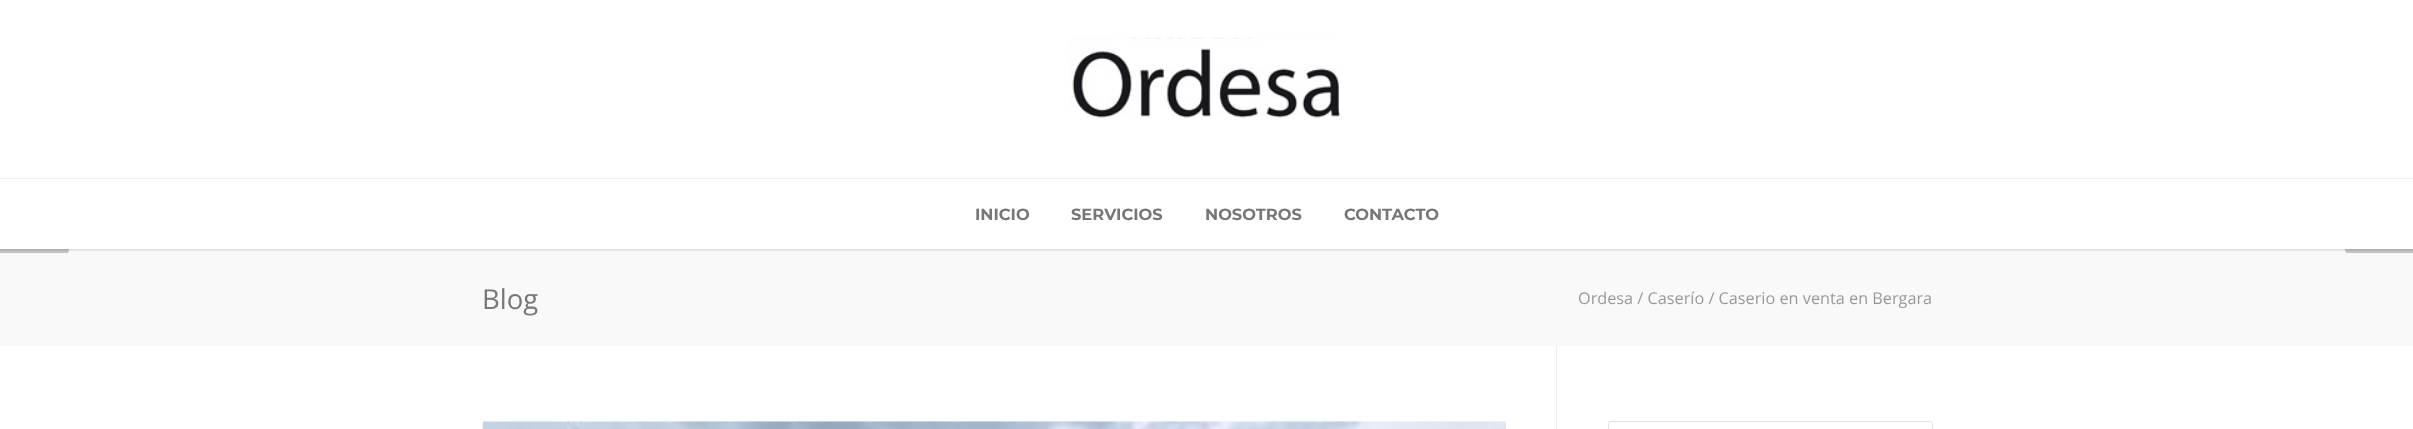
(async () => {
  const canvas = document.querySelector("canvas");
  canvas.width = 2413;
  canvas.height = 429;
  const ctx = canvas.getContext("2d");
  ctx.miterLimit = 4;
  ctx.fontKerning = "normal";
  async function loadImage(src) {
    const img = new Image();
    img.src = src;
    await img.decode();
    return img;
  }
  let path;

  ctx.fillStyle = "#ffffff";
  ctx.fillRect(0, 0, 2413, 429);
  ctx.fillStyle = "#efefef";
  ctx.fillRect(1556, 346, 1, 83);
  ctx.fillStyle = "#f9f9f9";
  ctx.fillRect(0, 249, 2413, 97);
  ctx.fillStyle = "rgba(68, 68, 68, 0.3)";
  path = new Path2D("M-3 178H66.5C68 178 69 179 69 180.5V250.5C69 252 68 253 66.5 253H-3Z");
  ctx.fill(path);
  path = new Path2D("M2347.5 178H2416V253H2347.5C2346 253 2345 252 2345 250.5V180.5C2345 179 2346 178 2347.5 178Z");
  ctx.fill(path);
  ctx.drawImage(await loadImage("img/1.png"), 482, 421, 1024, 8);
  ctx.beginPath();
  ctx.roundRect(1608.5, 421.5, 324, 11, 2);
  ctx.strokeStyle = "#e1e1e1";
  ctx.stroke();
  ctx.fillStyle = "rgba(0, 0, 0, 0.16)";
  ctx.filter = "blur(1px)";
  ctx.beginPath();
  ctx.rect(-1, -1, 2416, 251);
  ctx.fill();
  ctx.filter = "none";
  ctx.fillStyle = "#ffffff";
  ctx.fillRect(0, 0, 2413, 249);
  ctx.drawImage(await loadImage("img/2.png"), 1070, 37, 271, 81);
  ctx.fillStyle = "#efefef";
  ctx.fillRect(0, 178, 2413, 1);
  ctx.font = "bold 16.25px Montserrat";
  ctx.fillStyle = "#777777";
  for (const [text, x, y] of [
    ["INICIO", 975, 220],
    ["SERVICIOS", 1071, 220],
    ["NOSOTROS", 1205, 220],
    ["CONTACTO", 1344, 220],
  ]) {
    ctx.fillText(text, x, y);
  }
  ctx.font = "27.5px Open Sans";
  ctx.fillText("Blog", 482, 309);
  ctx.font = "16.25px Open Sans";
  ctx.fillStyle = "#999999";
  ctx.fillText("Ordesa / Caserío / Caserio en venta en Bergara", 1578, 304);
})();
